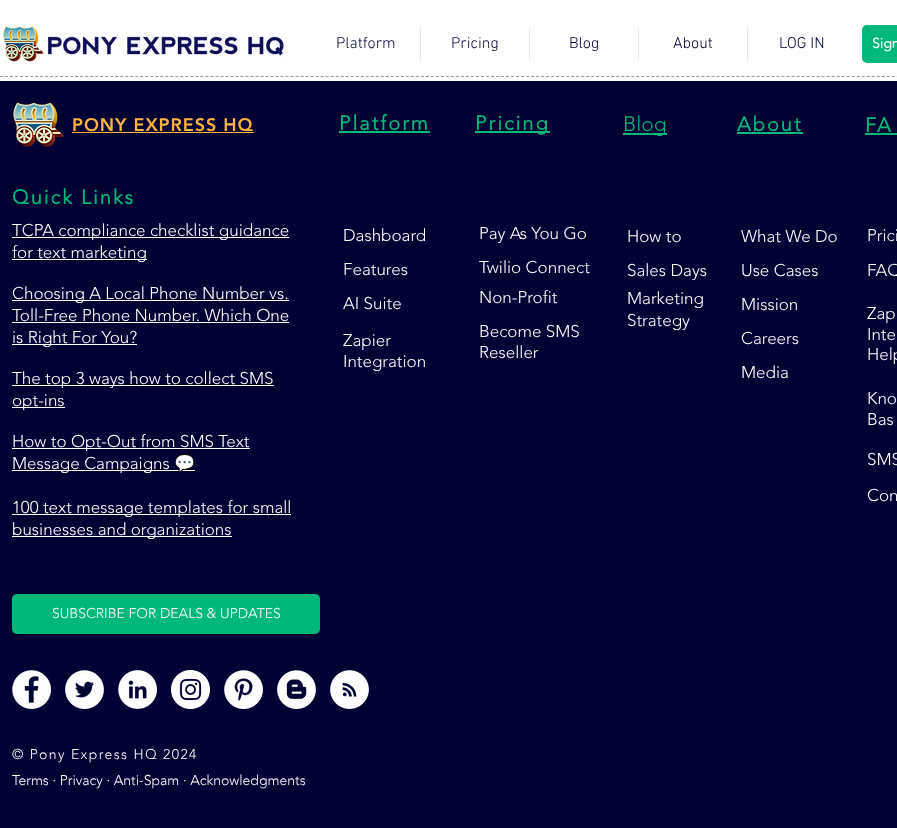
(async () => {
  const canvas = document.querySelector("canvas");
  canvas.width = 897;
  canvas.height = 828;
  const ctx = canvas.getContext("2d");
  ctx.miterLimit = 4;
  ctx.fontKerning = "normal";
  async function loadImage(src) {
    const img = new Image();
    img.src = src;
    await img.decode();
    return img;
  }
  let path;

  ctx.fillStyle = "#ffffff";
  ctx.fillRect(0, 0, 897, 828);
  ctx.drawImage(await loadImage("img/1.png"), 2, 26, 282, 36);
  for (const [x, y, w, h, color] of [
    [420, 28, 1, 32, "#e8e6e6"],
    [529, 28, 1, 32, "#e8e6e6"],
    [638, 28, 1, 32, "#e8e6e6"],
    [747, 28, 1, 32, "#e8e6e6"],
  ]) {
    ctx.fillStyle = color;
    ctx.fillRect(x, y, w, h);
  }
  ctx.fillStyle = "#00b87a";
  ctx.beginPath();
  ctx.roundRect(862, 25, 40, 38, 5);
  ctx.fill();
  path = new Path2D("M0 76.5H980");
  ctx.strokeStyle = "#999997";
  ctx.setLineDash([3, 2.01]);
  ctx.stroke(path);
  ctx.fillStyle = "#000032";
  ctx.fillRect(0, 81, 897, 747);
  ctx.drawImage(await loadImage("img/2.png"), 13, 102, 51, 45);
  for (const [x, y, w, h, color] of [
    [72, 132, 182, 1, "#ffb340"],
    [339, 131, 91, 2, "#00b67a"],
    [475, 131, 75, 2, "#00b67a"],
    [623, 133, 44, 2, "#00b67a"],
    [737, 132, 66, 2, "#00b67a"],
    [865, 133, 32, 2, "#00b67a"],
    [12, 237, 277, 1, "#ffffff"],
    [12, 259, 135, 1, "#ffffff"],
    [12, 300, 277, 1, "#ffffff"],
    [12, 322, 277, 1, "#ffffff"],
    [12, 344, 125, 1, "#ffffff"],
    [12, 385, 262, 1, "#ffffff"],
    [12, 407, 53, 1, "#ffffff"],
    [12, 448, 238, 1, "#ffffff"],
    [12, 470, 183, 1, "#ffffff"],
    [12, 514, 279, 1, "#ffffff"],
    [12, 536, 220, 1, "#ffffff"],
  ]) {
    ctx.fillStyle = color;
    ctx.fillRect(x, y, w, h);
  }
  ctx.fillStyle = "#00b87a";
  ctx.beginPath();
  ctx.roundRect(12, 594, 308, 40, 5);
  ctx.fill();
  ctx.drawImage(await loadImage("img/3.png"), 12, 670, 39, 39);
  ctx.drawImage(await loadImage("img/4.png"), 65, 670, 39, 39);
  ctx.drawImage(await loadImage("img/5.png"), 118, 670, 39, 39);
  ctx.drawImage(await loadImage("img/6.png"), 171, 670, 39, 39);
  ctx.drawImage(await loadImage("img/7.png"), 224, 670, 39, 39);
  ctx.drawImage(await loadImage("img/8.png"), 277, 670, 39, 39);
  ctx.drawImage(await loadImage("img/9.png"), 330, 670, 39, 39);
  ctx.font = "300 16px 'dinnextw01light'";
  ctx.fillStyle = "#000032";
  for (const [text, x, y] of [
    ["Platform", 336, 48],
    ["Pricing", 451, 48],
    ["Blog", 569, 48],
    ["About", 673, 48],
    ["LOG IN", 779, 48],
  ]) {
    ctx.fillText(text, x, y);
  }
  ctx.font = "bold 14px 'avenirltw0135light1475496'";
  ctx.fillStyle = "#ffffff";
  ctx.fillText("Sign", 872, 48);
  ctx.letterSpacing = "0.9px";
  ctx.font = "900 18px 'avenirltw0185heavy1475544'";
  ctx.fillStyle = "#ffb340";
  ctx.fillText("PONY EXPRESS HQ", 72, 131);
  ctx.letterSpacing = "2px";
  ctx.font = "bold 20px 'avenirltw0135light1475496'";
  ctx.fillStyle = "#00b67a";
  ctx.fillText("Platform", 339, 130);
  ctx.fillText("Pricing", 475, 130);
  ctx.letterSpacing = "0px";
  ctx.font = "300 21px 'avenirltw0135light1475496'";
  ctx.fillText("Blog", 623, 131);
  ctx.letterSpacing = "2px";
  ctx.font = "bold 20px 'avenirltw0135light1475496'";
  ctx.fillText("About", 737, 131);
  ctx.fillText("FA", 865, 132);
  ctx.letterSpacing = "0px";
  ctx.font = "300 17px 'avenirltw0135light1475496'";
  ctx.fillStyle = "#ffffff";
  for (const [text, x, y] of [
    ["Dashboard", 343, 241],
    ["Features", 343, 275],
    ["AI Suite", 343, 309],
    ["Zapier", 343, 346],
    ["Integration", 343, 367],
    ["Pay As You Go", 479, 239],
    ["Twilio Connect", 479, 273],
    ["Non-Profit", 479, 303],
    ["Become SMS", 479, 337],
    ["Reseller", 479, 358],
    ["How to", 627, 242],
    ["Sales Days", 627, 276],
    ["Marketing", 627, 304],
    ["Strategy", 627, 326],
    ["What We Do", 741, 242],
    ["Use Cases", 741, 276],
    ["Mission", 741, 310],
    ["Careers", 741, 344],
    ["Media", 741, 378],
    ["Prici", 867, 241],
    ["FAQ", 867, 276],
    ["Zap", 867, 319],
    ["Inte", 867, 340],
    ["Help", 867, 360],
    ["Kno", 867, 404],
    ["Bas", 867, 425],
    ["SMS", 867, 465],
    ["Con", 867, 501],
  ]) {
    ctx.fillText(text, x, y);
  }
  ctx.letterSpacing = "2px";
  ctx.font = "bold 20px 'avenirltw0135light1475496'";
  ctx.fillStyle = "#00b67a";
  ctx.fillText("Quick Links", 12, 204);
  ctx.letterSpacing = "0px";
  ctx.font = "300 17px 'avenirltw0135light1475496'";
  ctx.fillStyle = "#ffffff";
  for (const [text, x, y] of [
    ["TCPA compliance checklist guidance", 12, 236],
    ["for text marketing", 12, 258],
    ["Choosing A Local Phone Number vs.", 12, 299],
    ["Toll-Free Phone Number. Which One", 12, 321],
    ["is Right For You?", 12, 343],
    ["The top 3 ways how to collect SMS", 12, 384],
    ["opt-ins", 12, 406],
    ["How to Opt-Out from SMS Text", 12, 447],
    ["Message Campaigns", 12, 469],
  ]) {
    ctx.fillText(text, x, y);
  }
  ctx.font = "17px Noto Color Emoji";
  ctx.fillText("💬", 174, 469);
  ctx.font = "300 17px 'avenirltw0135light1475496'";
  ctx.fillText("100 text message templates for small", 12, 513);
  ctx.fillText("businesses and organizations", 12, 535);
  ctx.font = "300 14px 'avenirltw0135light1475496'";
  ctx.fillText("SUBSCRIBE FOR DEALS & UPDATES", 52, 618);
  ctx.letterSpacing = "1.4px";
  ctx.fillText("© Pony Express HQ 2024", 12, 759);
  ctx.letterSpacing = "0px";
  ctx.fillText("Terms · Privacy · Anti-Spam · Acknowledgments", 12, 785);
})();
